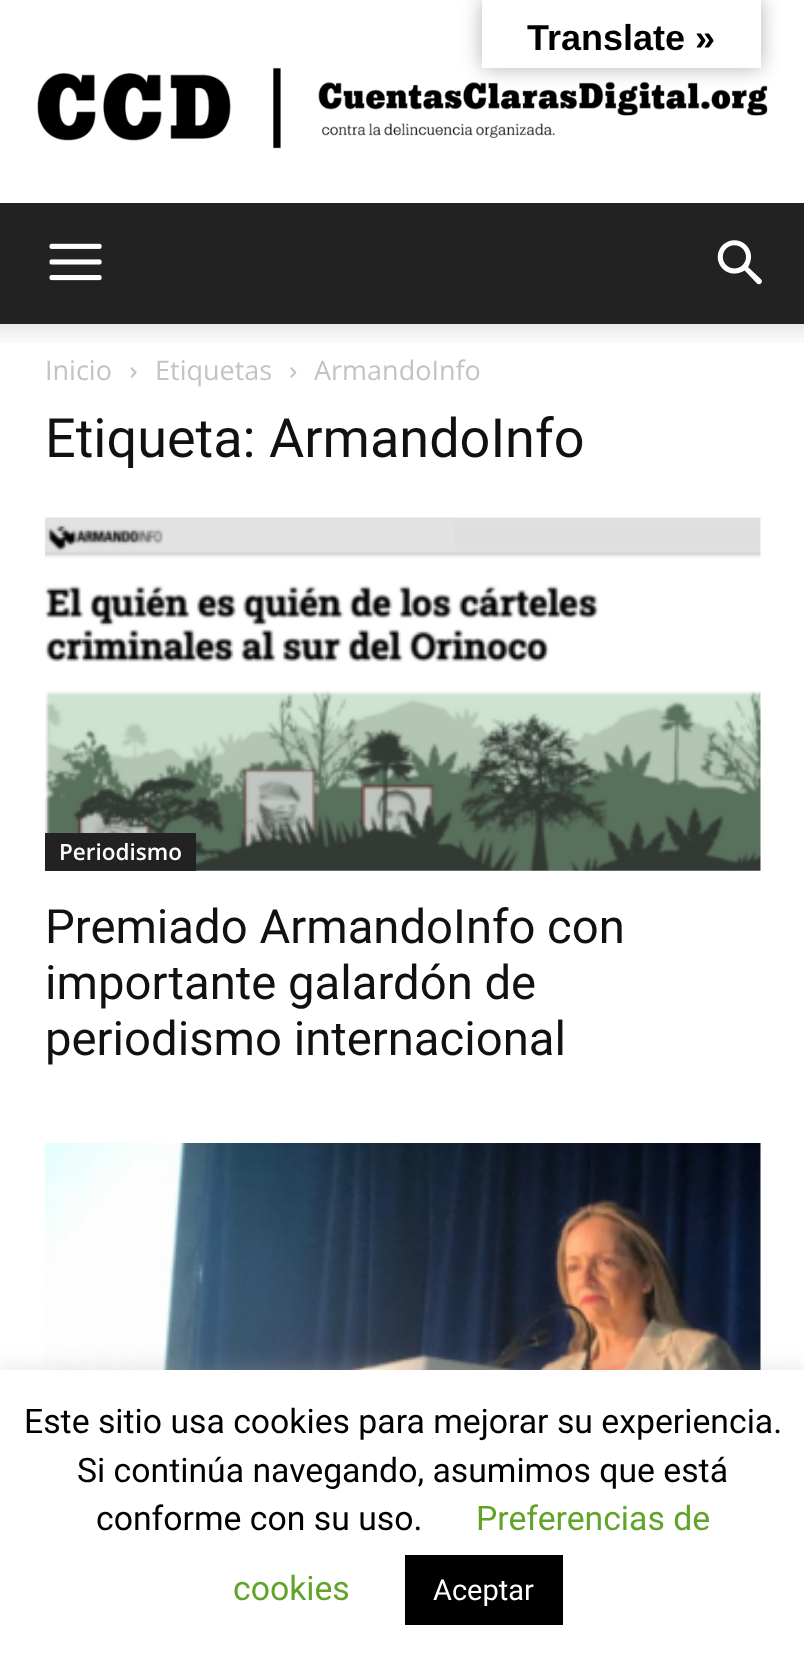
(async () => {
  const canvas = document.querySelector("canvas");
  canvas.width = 804;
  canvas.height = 1662;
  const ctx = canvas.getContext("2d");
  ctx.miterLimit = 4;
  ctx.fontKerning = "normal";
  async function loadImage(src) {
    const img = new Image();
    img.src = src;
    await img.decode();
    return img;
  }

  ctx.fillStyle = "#ffffff";
  ctx.fillRect(0, 0, 804, 1662);
  ctx.drawImage(await loadImage("img/1.png"), 37, 67, 731, 82);
  ctx.fillStyle = "rgba(0, 0, 0, 0.3)";
  ctx.filter = "blur(10px)";
  ctx.beginPath();
  ctx.rect(482, 0, 279, 68);
  ctx.fill();
  ctx.filter = "none";
  ctx.fillStyle = "#ffffff";
  ctx.fillRect(482, 0, 279, 68);
  ctx.fillStyle = "#222222";
  ctx.fillRect(0, 203, 804, 121);
  ctx.drawImage(await loadImage("img/2.png"), 49, 243, 53, 38);
  ctx.drawImage(await loadImage("img/3.png"), 717, 240, 45, 45);
  ctx.drawImage(await loadImage("img/4.png"), 0, 324, 804, 19);
  ctx.drawImage(await loadImage("img/5.png"), 130, 367, 7, 11);
  ctx.drawImage(await loadImage("img/6.png"), 290, 367, 7, 11);
  ctx.drawImage(await loadImage("img/7.png"), 45, 517, 716, 354);
  ctx.fillRect(45, 833, 151, 38);
  ctx.drawImage(await loadImage("img/8.png"), 45, 1143, 716, 227);
  ctx.fillStyle = "rgba(172, 171, 171, 0.3)";
  ctx.filter = "blur(11px)";
  ctx.beginPath();
  ctx.rect(0, 1368, 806, 293);
  ctx.fill();
  ctx.filter = "none";
  ctx.fillStyle = "#ffffff";
  ctx.fillRect(0, 1370, 804, 292);
  ctx.fillStyle = "#000000";
  ctx.fillRect(405, 1555, 158, 70);
  ctx.font = "bold 36px Liberation Sans";
  ctx.fillText("Translate »", 527, 50);
  ctx.font = "27px Open Sans";
  ctx.fillStyle = "#c3c3c3";
  for (const [text, x, y] of [
    ["Inicio", 45, 380],
    ["Etiquetas", 155, 380],
    ["ArmandoInfo", 314, 380],
  ]) {
    ctx.fillText(text, x, y);
  }
  ctx.font = "54px Roboto";
  ctx.fillStyle = "#111111";
  ctx.fillText("Etiqueta: ArmandoInfo", 45, 457);
  ctx.font = "600 22.5px Open Sans";
  ctx.fillStyle = "#ffffff";
  ctx.fillText("Periodismo", 59, 860);
  ctx.font = "47.25px Roboto";
  ctx.fillStyle = "#111111";
  for (const [text, x, y] of [
    ["Premiado ArmandoInfo con", 45, 943],
    ["importante galardón de", 45, 999],
    ["periodismo internacional", 45, 1055],
  ]) {
    ctx.fillText(text, x, y);
  }
  ctx.font = "33.75px Roboto";
  ctx.fillStyle = "#000000";
  for (const [text, x, y] of [
    ["Este sitio usa cookies para mejorar su experiencia.", 24, 1433],
    ["Si continúa navegando, asumimos que está", 77, 1482],
    ["conforme con su uso.", 96, 1530],
  ]) {
    ctx.fillText(text, x, y);
  }
  ctx.fillStyle = "#62a329";
  ctx.fillText("Preferencias de", 476, 1530);
  ctx.fillText("cookies", 233, 1600);
  ctx.font = "29px Roboto";
  ctx.fillStyle = "#ffffff";
  ctx.fillText("Aceptar", 433, 1600);
})();
